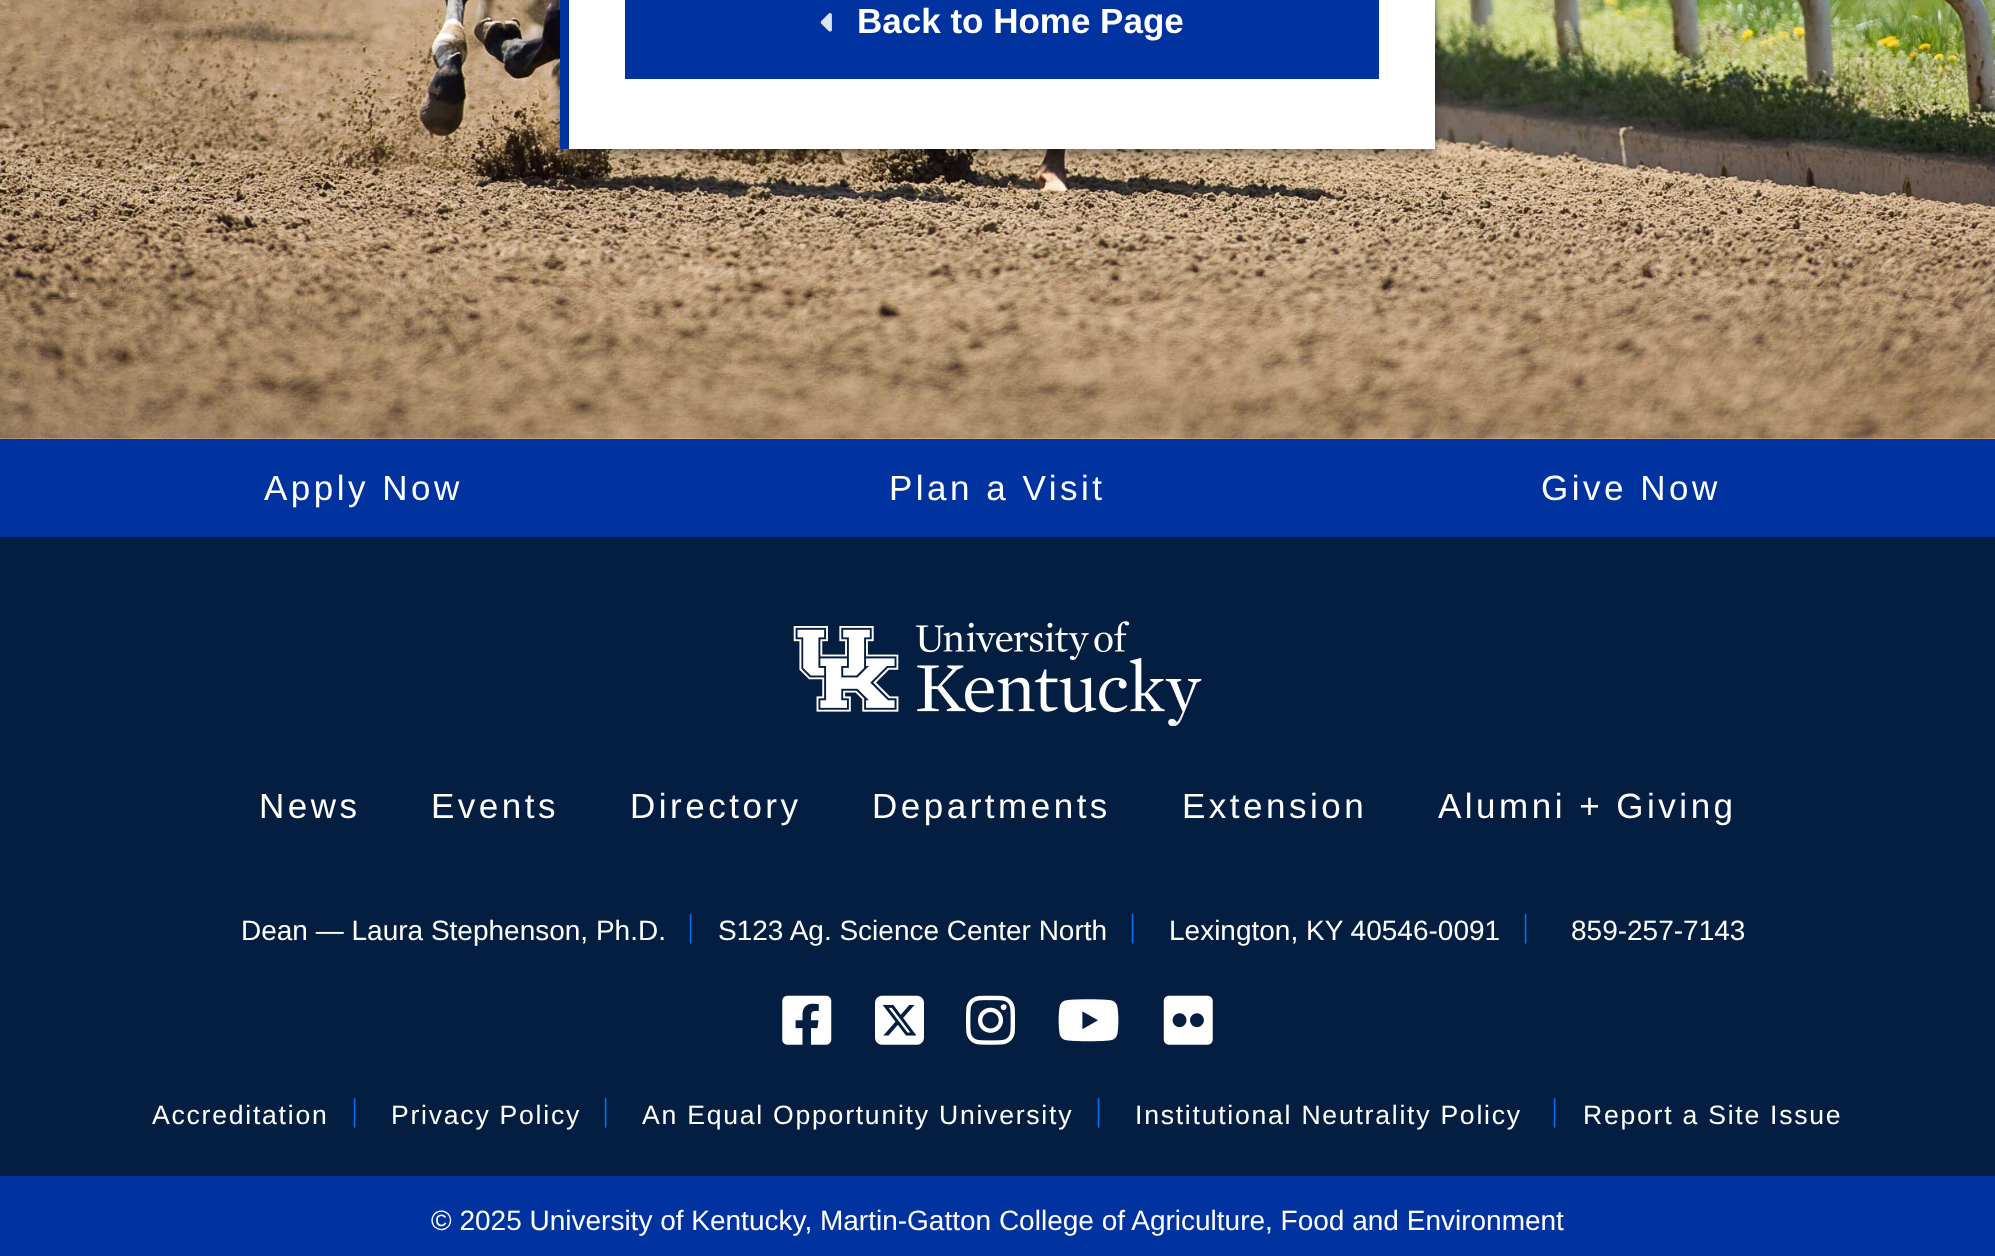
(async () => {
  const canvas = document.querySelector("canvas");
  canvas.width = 1995;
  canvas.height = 1256;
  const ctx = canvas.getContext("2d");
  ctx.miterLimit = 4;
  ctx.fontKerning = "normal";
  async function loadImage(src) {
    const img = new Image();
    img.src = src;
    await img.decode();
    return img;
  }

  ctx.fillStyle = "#ffffff";
  ctx.fillRect(0, 0, 1995, 1256);
  ctx.drawImage(await loadImage("img/1.png"), 0, 0, 1995, 439);
  ctx.fillStyle = "rgba(0, 0, 0, 0.23)";
  ctx.filter = "blur(5px)";
  ctx.beginPath();
  ctx.rect(560, -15, 875, 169);
  ctx.fill();
  ctx.filter = "none";
  ctx.fillStyle = "rgba(0, 0, 0, 0.16)";
  ctx.filter = "blur(5px)";
  ctx.beginPath();
  ctx.rect(560, -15, 875, 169);
  ctx.fill();
  ctx.filter = "none";
  for (const [x, y, w, h, color] of [
    [569, 0, 866, 149, "#ffffff"],
    [560, 0, 9, 149, "#0033a0"],
    [625, 0, 754, 79, "#0033a0"],
  ]) {
    ctx.fillStyle = color;
    ctx.fillRect(x, y, w, h);
  }
  ctx.drawImage(await loadImage("img/2.png"), 820, 13, 12, 19);
  ctx.fillRect(0, 439, 1995, 98);
  ctx.fillStyle = "#041e42";
  ctx.fillRect(0, 537, 1995, 639);
  ctx.drawImage(await loadImage("img/3.png"), 793, 621, 409, 105);
  ctx.drawImage(await loadImage("img/4.png"), 782, 995, 50, 50);
  ctx.drawImage(await loadImage("img/5.png"), 875, 995, 49, 50);
  ctx.drawImage(await loadImage("img/6.png"), 966, 995, 49, 50);
  ctx.drawImage(await loadImage("img/7.png"), 1058, 999, 61, 43);
  ctx.drawImage(await loadImage("img/8.png"), 1163, 995, 50, 50);
  ctx.fillStyle = "#0033a0";
  ctx.fillRect(0, 1176, 1995, 80);
  ctx.font = "bold 35px Liberation Sans";
  ctx.fillStyle = "#ffffff";
  ctx.fillText("Back to Home Page", 857, 33);
  ctx.letterSpacing = "3.5px";
  ctx.font = "35px Liberation Sans";
  for (const [text, x, y] of [
    ["Apply Now", 264, 500],
    ["Plan a Visit", 889, 500],
    ["Give Now", 1541, 500],
    ["News", 259, 818],
    ["Events", 431, 818],
    ["Directory", 630, 818],
    ["Departments", 872, 818],
    ["Extension", 1182, 818],
    ["Alumni + Giving", 1438, 818],
  ]) {
    ctx.fillText(text, x, y);
  }
  ctx.letterSpacing = "0px";
  ctx.font = "28px Liberation Sans";
  ctx.fillText("Dean — Laura Stephenson, Ph.D.", 241, 940);
  ctx.font = "500 36px WenQuanYi Zen Hei";
  ctx.fillStyle = "#0071eb";
  ctx.fillText("︱", 674, 940);
  ctx.font = "28px Liberation Sans";
  ctx.fillStyle = "#ffffff";
  ctx.fillText("S123 Ag. Science Center North", 718, 940);
  ctx.font = "500 36px WenQuanYi Zen Hei";
  ctx.fillStyle = "#0071eb";
  ctx.fillText("︱", 1116, 940);
  ctx.font = "28px Liberation Sans";
  ctx.fillStyle = "#ffffff";
  ctx.fillText("Lexington, KY 40546-0091", 1169, 940);
  ctx.font = "500 36px WenQuanYi Zen Hei";
  ctx.fillStyle = "#0071eb";
  ctx.fillText("︱", 1509, 940);
  ctx.font = "28px Liberation Sans";
  ctx.fillStyle = "#ffffff";
  ctx.fillText("859-257-7143", 1571, 940);
  ctx.letterSpacing = "1.75px";
  ctx.font = "26.6px Liberation Sans";
  ctx.fillText("Accreditation", 152, 1124);
  ctx.letterSpacing = "0px";
  ctx.font = "500 36px WenQuanYi Zen Hei";
  ctx.fillStyle = "#0071eb";
  ctx.fillText("︱", 338, 1124);
  ctx.letterSpacing = "1.75px";
  ctx.font = "26.6px Liberation Sans";
  ctx.fillStyle = "#ffffff";
  ctx.fillText("Privacy Policy", 391, 1124);
  ctx.letterSpacing = "0px";
  ctx.font = "500 36px WenQuanYi Zen Hei";
  ctx.fillStyle = "#0071eb";
  ctx.fillText("︱", 589, 1124);
  ctx.letterSpacing = "1.75px";
  ctx.font = "26.6px Liberation Sans";
  ctx.fillStyle = "#ffffff";
  ctx.fillText("An Equal Opportunity University", 642, 1124);
  ctx.letterSpacing = "0px";
  ctx.font = "500 36px WenQuanYi Zen Hei";
  ctx.fillStyle = "#0071eb";
  ctx.fillText("︱", 1082, 1124);
  ctx.letterSpacing = "1.75px";
  ctx.font = "26.6px Liberation Sans";
  ctx.fillStyle = "#ffffff";
  ctx.fillText("Institutional Neutrality Policy", 1135, 1124);
  ctx.letterSpacing = "0px";
  ctx.font = "500 36px WenQuanYi Zen Hei";
  ctx.fillStyle = "#0071eb";
  ctx.fillText("︱", 1538, 1124);
  ctx.letterSpacing = "1.75px";
  ctx.font = "26.6px Liberation Sans";
  ctx.fillStyle = "#ffffff";
  ctx.fillText("Report a Site Issue", 1583, 1124);
  ctx.letterSpacing = "0px";
  ctx.font = "28px Liberation Sans";
  ctx.fillText("© 2025 University of Kentucky, Martin-Gatton College of Agriculture, Food and Environment", 431, 1230);
})();
